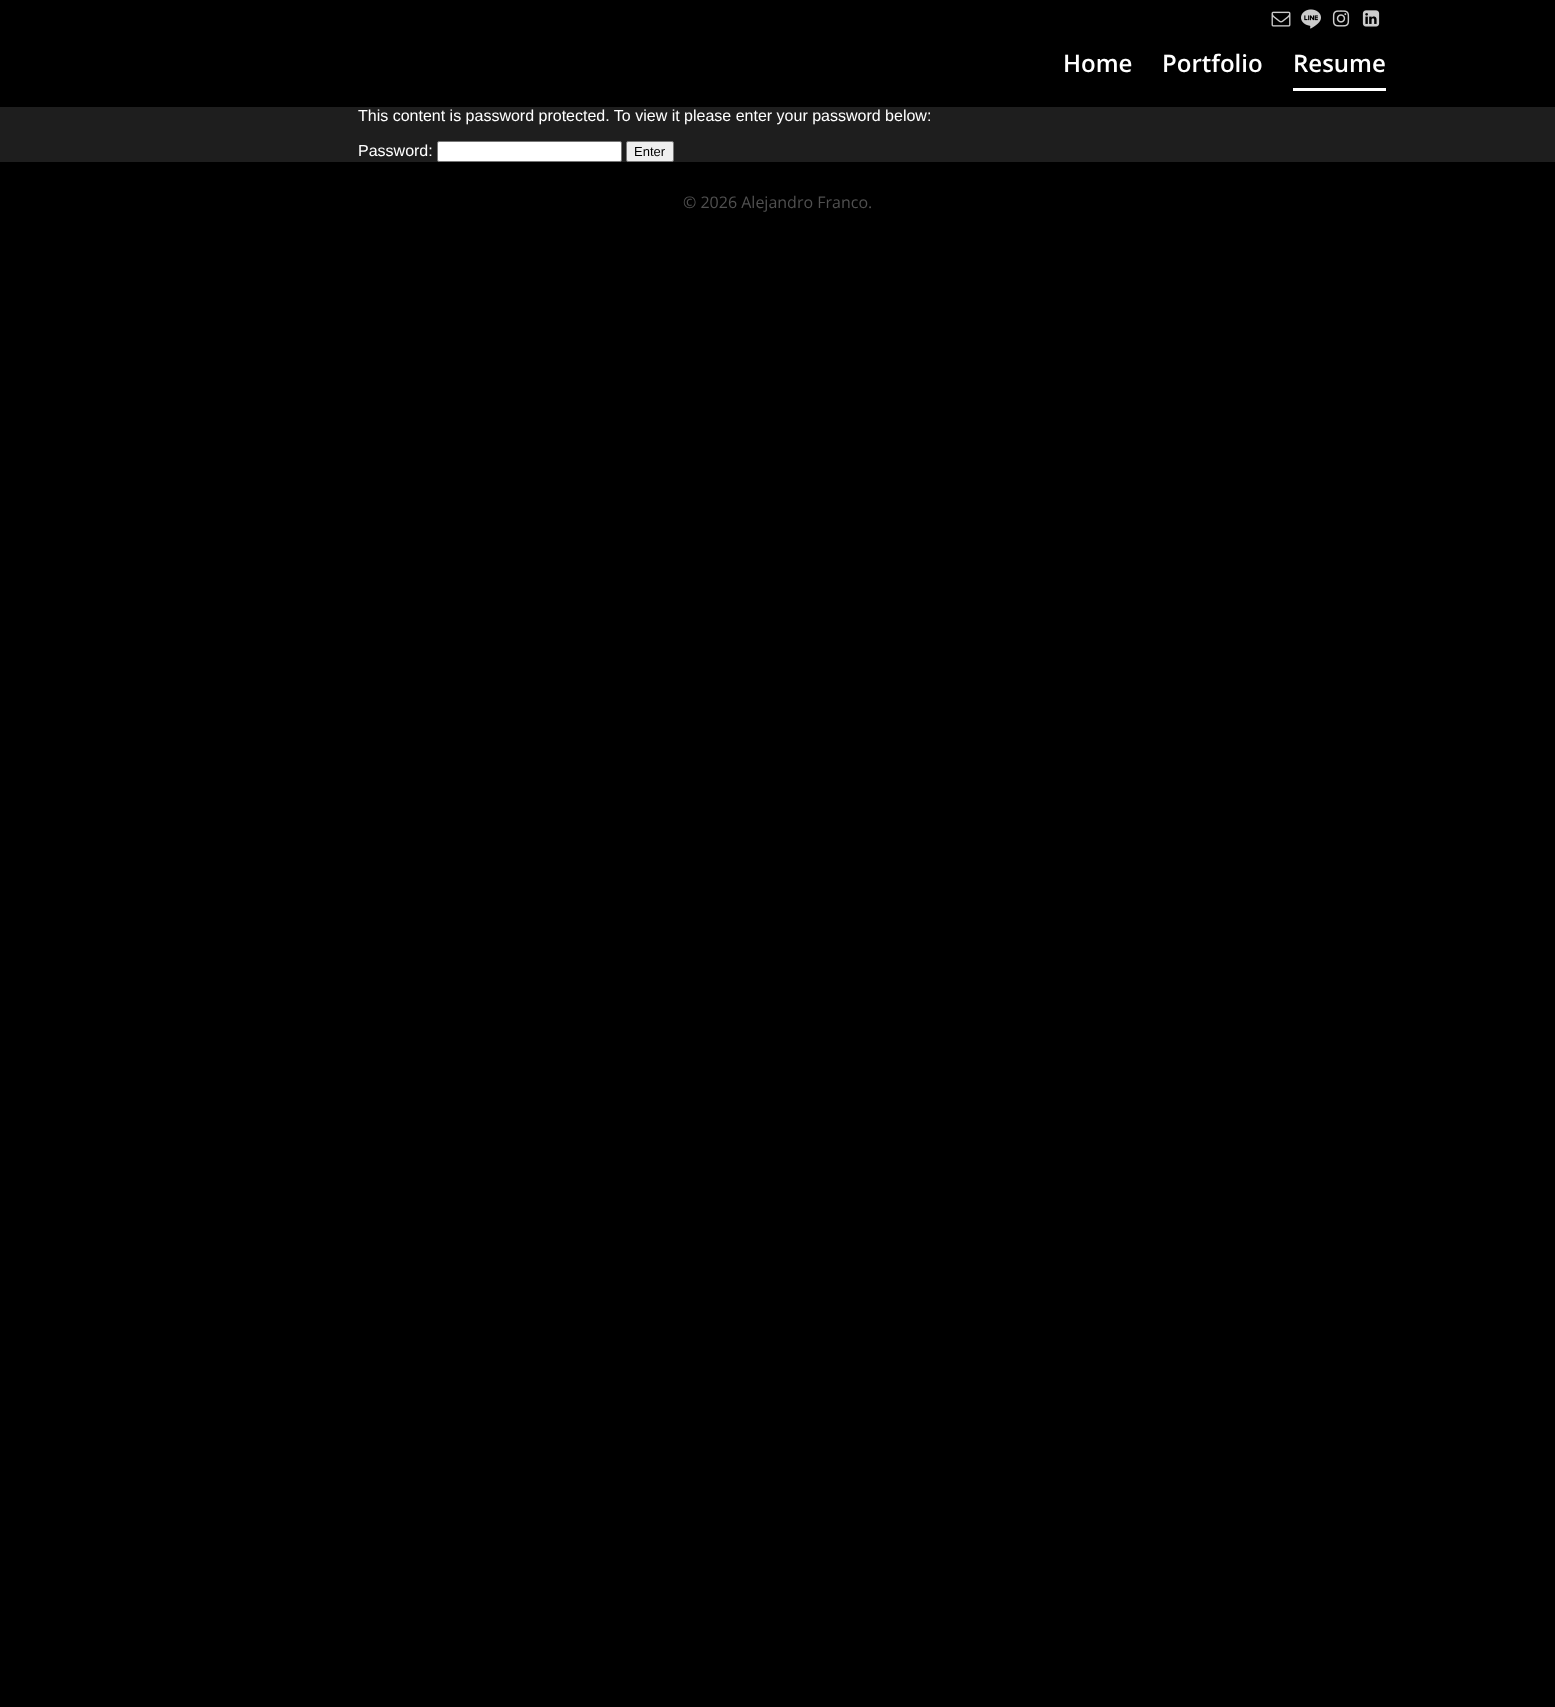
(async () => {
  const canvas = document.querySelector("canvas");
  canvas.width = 1555;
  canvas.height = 1707;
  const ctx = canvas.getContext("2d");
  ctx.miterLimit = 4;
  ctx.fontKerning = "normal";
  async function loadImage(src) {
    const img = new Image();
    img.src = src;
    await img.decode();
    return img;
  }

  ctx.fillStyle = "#000000";
  ctx.fillRect(0, 0, 1555, 1707);
  ctx.drawImage(await loadImage("img/1.png"), 1271, 11, 20, 16);
  ctx.drawImage(await loadImage("img/2.png"), 1301, 9, 20, 20);
  ctx.drawImage(await loadImage("img/3.png"), 1332, 10, 18, 17);
  ctx.drawImage(await loadImage("img/4.png"), 1362, 10, 18, 17);
  ctx.fillStyle = "#ffffff";
  ctx.fillRect(1293, 88, 93, 3);
  ctx.fillStyle = "#1e1e1e";
  ctx.fillRect(0, 107, 1555, 55);
  ctx.fillStyle = "#ffffff";
  ctx.beginPath();
  ctx.roundRect(437.5, 141.5, 184, 20, 1.5);
  ctx.fill();
  ctx.strokeStyle = "#767676";
  ctx.stroke();
  ctx.fillStyle = "#efefef";
  ctx.beginPath();
  ctx.roundRect(626.5, 141.5, 47, 20, 1.5);
  ctx.fill();
  ctx.stroke();
  ctx.font = "600 24px Open Sans";
  ctx.fillStyle = "#ffffff";
  for (const [text, x, y] of [
    ["Home", 1063, 72],
    ["Portfolio", 1162, 72],
    ["Resume", 1293, 72],
  ]) {
    ctx.fillText(text, x, y);
  }
  ctx.font = "16px Liberation Sans";
  ctx.fillText("This content is password protected. To view it please enter your password below:", 358, 121);
  ctx.fillText("Password:", 358, 156);
  ctx.font = "13px Liberation Sans";
  ctx.fillStyle = "#000000";
  ctx.fillText("Enter", 634, 156);
  ctx.font = "16px Open Sans";
  ctx.fillStyle = "#505050";
  ctx.fillText("© 2026 Alejandro Franco.", 683, 208);
})();
